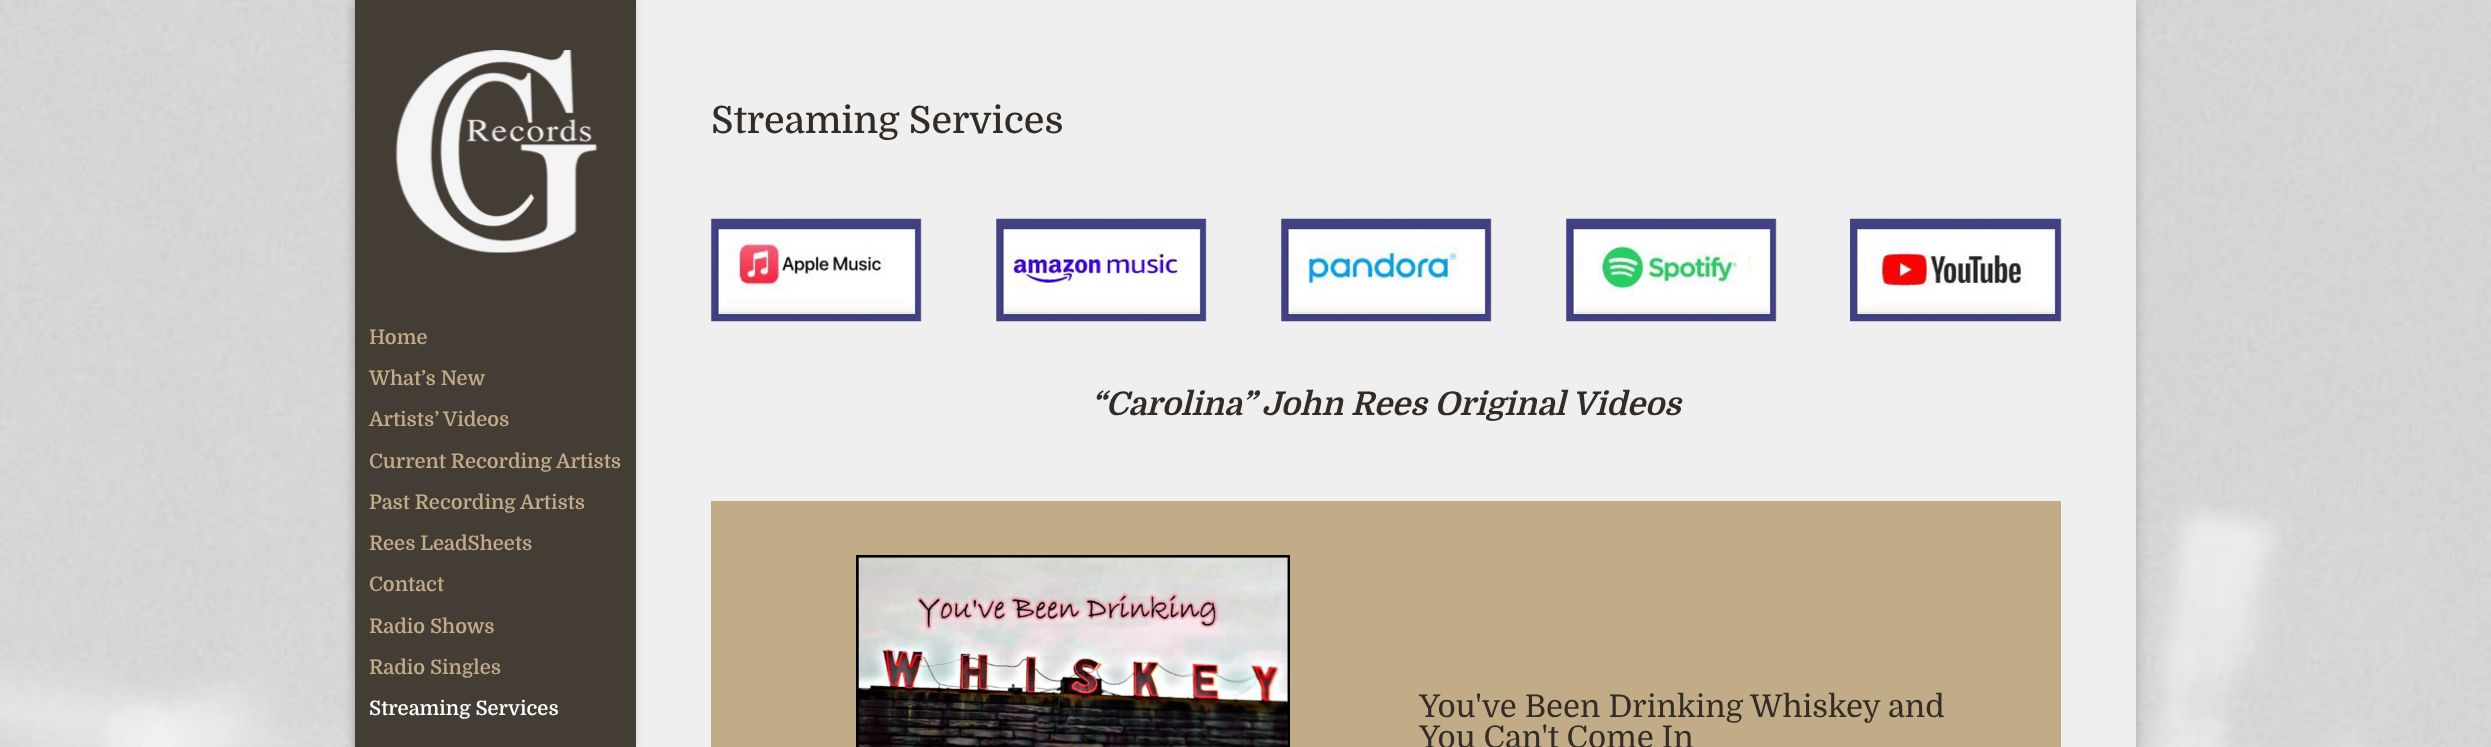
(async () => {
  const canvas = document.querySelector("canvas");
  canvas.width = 2491;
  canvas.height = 747;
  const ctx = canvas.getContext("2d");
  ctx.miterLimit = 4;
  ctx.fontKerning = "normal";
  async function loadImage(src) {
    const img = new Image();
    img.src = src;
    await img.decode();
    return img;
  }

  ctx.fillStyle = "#ffffff";
  ctx.fillRect(0, 0, 2491, 747);
  ctx.drawImage(await loadImage("img/1.png"), 0, 0, 2491, 747);
  ctx.fillStyle = "rgba(0, 0, 0, 0.2)";
  ctx.filter = "blur(6px)";
  ctx.beginPath();
  ctx.rect(355, 0, 1781, 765);
  ctx.fill();
  ctx.filter = "none";
  ctx.fillStyle = "#efefef";
  ctx.fillRect(636, 0, 1500, 747);
  ctx.fillStyle = "rgba(0, 0, 0, 0.1)";
  ctx.filter = "blur(4.5px)";
  ctx.beginPath();
  ctx.rect(355, 0, 281, 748);
  ctx.fill();
  ctx.filter = "none";
  ctx.fillStyle = "#443d36";
  ctx.fillRect(355, 0, 281, 747);
  ctx.drawImage(await loadImage("img/2.png"), 395, 50, 202, 203);
  ctx.drawImage(await loadImage("img/3.png"), 711, 218, 211, 104);
  ctx.drawImage(await loadImage("img/4.png"), 996, 218, 211, 104);
  ctx.drawImage(await loadImage("img/5.png"), 1281, 218, 211, 104);
  ctx.drawImage(await loadImage("img/6.png"), 1566, 218, 211, 104);
  ctx.drawImage(await loadImage("img/7.png"), 1850, 218, 212, 104);
  ctx.fillStyle = "#c1ac87";
  ctx.fillRect(711, 501, 1350, 246);
  ctx.strokeStyle = "#000000";
  ctx.lineWidth = 3;
  ctx.strokeRect(857.5, 556.5, 431, 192);
  ctx.drawImage(await loadImage("img/8.png"), 858, 557, 430, 190);
  ctx.font = "600 20px Domine";
  for (const [text, x, y] of [
    ["Home", 369, 344],
    ["What’s New", 369, 385],
    ["Artists’ Videos", 369, 426],
    ["Current Recording Artists", 369, 468],
    ["Past Recording Artists", 369, 509],
    ["Rees LeadSheets", 369, 550],
    ["Contact", 369, 591],
    ["Radio Shows", 369, 633],
    ["Radio Singles", 369, 674],
  ]) {
    ctx.fillText(text, x, y);
  }
  ctx.fillStyle = "#ffffff";
  ctx.fillText("Streaming Services", 369, 715);
  ctx.font = "500 37.5px Domine";
  ctx.fillStyle = "#332c26";
  ctx.fillText("Streaming Services", 711, 133);
  ctx.font = "italic bold 32.5px Domine";
  ctx.fillText("“Carolina” John Rees Original Videos", 1091, 415);
  ctx.font = "31.25px Domine";
  ctx.fillText("You've Been Drinking Whiskey and", 1419, 717);
  ctx.fillText("You Can't Come In", 1419, 748);
})();
